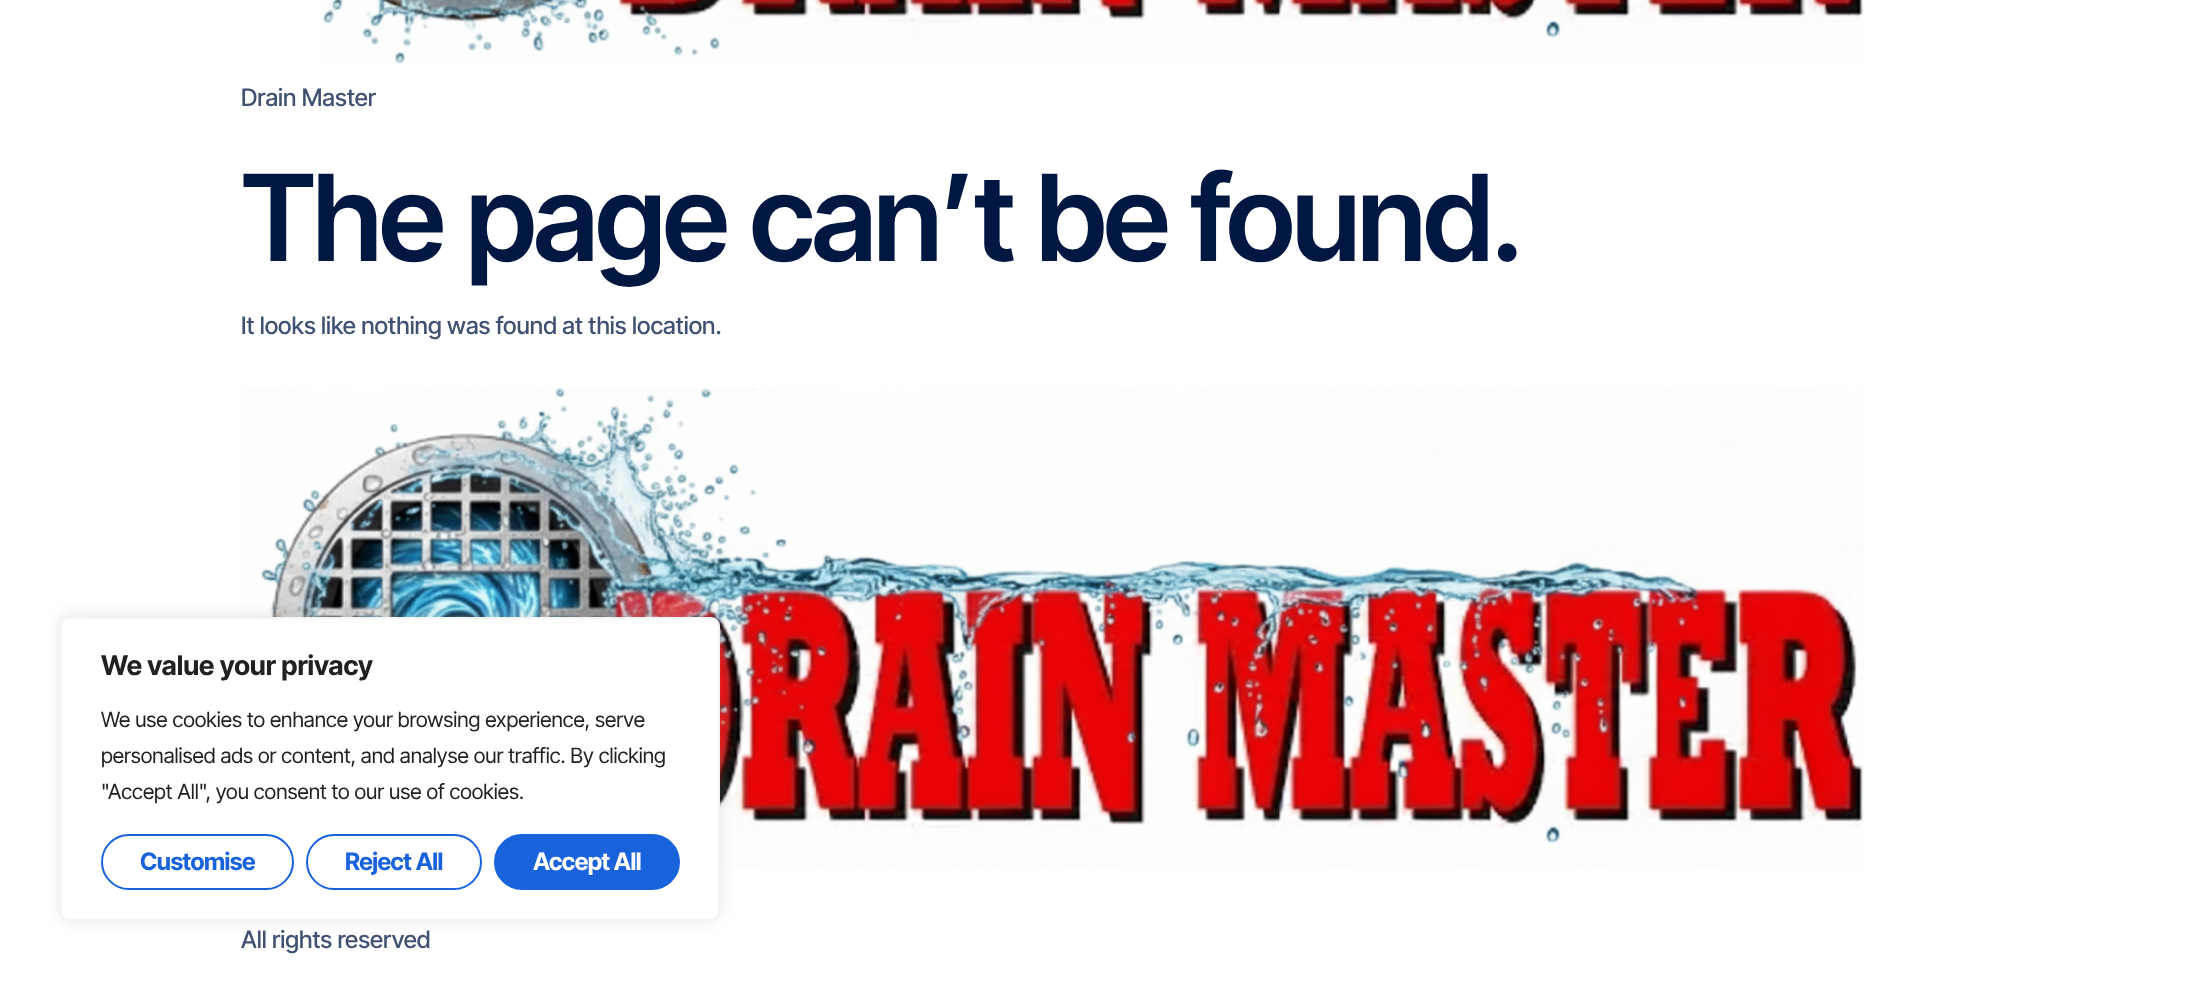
(async () => {
  const canvas = document.querySelector("canvas");
  canvas.width = 2191;
  canvas.height = 981;
  const ctx = canvas.getContext("2d");
  ctx.miterLimit = 4;
  ctx.fontKerning = "normal";
  async function loadImage(src) {
    const img = new Image();
    img.src = src;
    await img.decode();
    return img;
  }

  ctx.fillStyle = "#ffffff";
  ctx.fillRect(0, 0, 2191, 981);
  ctx.drawImage(await loadImage("img/1.png"), 322, 0, 1542, 64);
  ctx.drawImage(await loadImage("img/2.png"), 241, 388, 1623, 482);
  ctx.fillStyle = "rgba(172, 171, 171, 0.3)";
  ctx.filter = "blur(7.5px)";
  ctx.beginPath();
  ctx.roundRect(60, 615, 660, 305, 9);
  ctx.fill();
  ctx.filter = "none";
  ctx.fillStyle = "#ffffff";
  ctx.beginPath();
  ctx.roundRect(61, 618, 658, 302, 8);
  ctx.fill();
  ctx.strokeStyle = "#f4f4f4";
  ctx.lineWidth = 2;
  ctx.stroke();
  ctx.beginPath();
  ctx.roundRect(102, 835, 191, 54, 27);
  ctx.strokeStyle = "#1863dc";
  ctx.stroke();
  ctx.beginPath();
  ctx.roundRect(307, 835, 174, 54, 27);
  ctx.stroke();
  ctx.fillStyle = "#1863dc";
  ctx.beginPath();
  ctx.roundRect(495, 835, 184, 54, 27);
  ctx.fill();
  ctx.stroke();
  ctx.font = "500 24px Inter Tight";
  ctx.fillStyle = "#405171";
  ctx.fillText("Drain Master", 241, 106);
  ctx.letterSpacing = "-3px";
  ctx.wordSpacing = "1.5px";
  ctx.font = "600 120px Inter Tight";
  ctx.fillStyle = "#001742";
  ctx.fillText("The page can’t be found.", 241, 261);
  ctx.letterSpacing = "0px";
  ctx.wordSpacing = "0px";
  ctx.font = "500 24px Inter Tight";
  ctx.fillStyle = "#405171";
  ctx.fillText("It looks like nothing was found at this location.", 241, 334);
  ctx.font = "bold 27px Inter Tight";
  ctx.fillStyle = "#212121";
  ctx.fillText("We value your privacy", 101, 675);
  ctx.font = "21px Inter Tight";
  for (const [text, x, y] of [
    ["We use cookies to enhance your browsing experience, serve", 101, 727],
    ["personalised ads or content, and analyse our traffic. By clicking", 101, 763],
    ["\"Accept All\", you consent to our use of cookies.", 101, 799],
  ]) {
    ctx.fillText(text, x, y);
  }
  ctx.letterSpacing = "-0.5px";
  ctx.font = "bold 24px Inter Tight";
  ctx.fillStyle = "#1863dc";
  ctx.fillText("Customise", 140, 870);
  ctx.fillText("Reject All", 345, 870);
  ctx.fillStyle = "#ffffff";
  ctx.fillText("Accept All", 533, 870);
  ctx.letterSpacing = "0px";
  ctx.font = "500 24px Inter Tight";
  ctx.fillStyle = "#405171";
  ctx.fillText("All rights reserved", 241, 948);
})();
